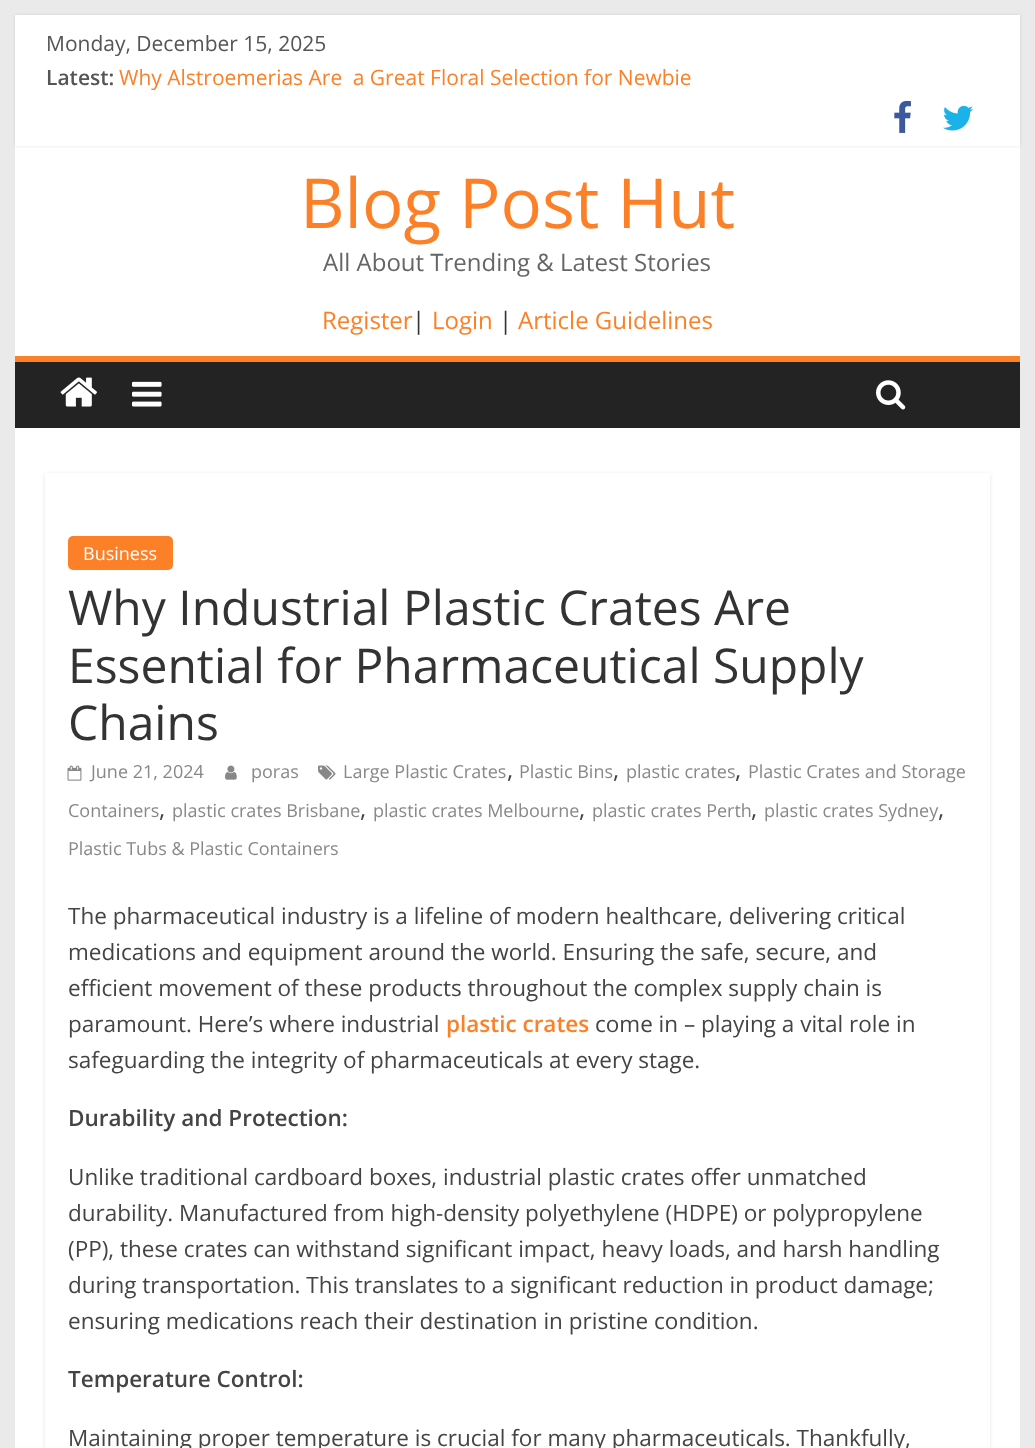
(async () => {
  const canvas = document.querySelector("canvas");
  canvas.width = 1035;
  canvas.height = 1448;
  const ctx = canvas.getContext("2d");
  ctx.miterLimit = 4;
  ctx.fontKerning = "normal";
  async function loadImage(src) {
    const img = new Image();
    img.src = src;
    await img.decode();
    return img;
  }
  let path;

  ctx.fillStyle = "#eaeaea";
  ctx.fillRect(0, 0, 1035, 1448);
  ctx.fillStyle = "#ffffff";
  ctx.fillRect(15, 146, 1005, 210);
  ctx.fillStyle = "rgba(0, 0, 0, 0.1)";
  ctx.filter = "blur(1.5px)";
  ctx.beginPath();
  ctx.rect(15, 15, 1005, 131);
  ctx.fill();
  ctx.filter = "none";
  ctx.fillStyle = "#ffffff";
  ctx.fillRect(15, 15, 1005, 131);
  ctx.drawImage(await loadImage("img/1.png"), 894, 100, 17, 33);
  ctx.drawImage(await loadImage("img/2.png"), 943, 105, 30, 26);
  ctx.fillStyle = "#232323";
  ctx.fillRect(15, 362, 1005, 66);
  ctx.fillStyle = "#fc8028";
  ctx.fillRect(15, 356, 1005, 6);
  ctx.drawImage(await loadImage("img/3.png"), 60, 377, 37, 30);
  ctx.drawImage(await loadImage("img/4.png"), 132, 381, 30, 26);
  ctx.drawImage(await loadImage("img/5.png"), 876, 380, 30, 30);
  ctx.fillStyle = "#ffffff";
  ctx.fillRect(15, 428, 1005, 1020);
  ctx.save();
  path = new Path2D("M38 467H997V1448H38ZM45 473H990V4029H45Z");
  ctx.clip(path, "evenodd");
  ctx.fillStyle = "rgba(0, 0, 0, 0.1)";
  ctx.filter = "blur(2px)";
  ctx.beginPath();
  ctx.rect(45, 474, 945, 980);
  ctx.fill();
  ctx.filter = "none";
  ctx.restore();
  ctx.fillStyle = "#fc8028";
  ctx.beginPath();
  ctx.roundRect(68, 536, 105, 34, 5);
  ctx.fill();
  ctx.drawImage(await loadImage("img/6.png"), 318, 765, 18, 15);
  ctx.drawImage(await loadImage("img/7.png"), 67, 765, 15, 16);
  ctx.drawImage(await loadImage("img/8.png"), 225, 765, 12, 15);
  ctx.font = "21px Open Sans";
  ctx.fillStyle = "#555555";
  ctx.fillText("Monday, December 15, 2025", 46, 51);
  ctx.font = "600 21px Open Sans";
  ctx.fillText("Latest:", 46, 85);
  ctx.font = "21px Open Sans";
  ctx.fillStyle = "#fc8028";
  ctx.fillText("Why Alstroemerias Are a Great Floral Selection for Newbie", 119, 85);
  ctx.font = "69px Open Sans";
  ctx.fillText("Blog Post Hut", 300, 228);
  ctx.font = "24px Open Sans";
  ctx.fillStyle = "#666666";
  ctx.fillText("All About Trending & Latest Stories", 323, 271);
  ctx.fillStyle = "#fc8028";
  ctx.fillText("Register", 322, 329);
  ctx.fillStyle = "#333333";
  ctx.fillText("|", 412, 329);
  ctx.fillStyle = "#fc8028";
  ctx.fillText("Login", 432, 329);
  ctx.fillStyle = "#333333";
  ctx.fillText("|", 499, 329);
  ctx.fillStyle = "#fc8028";
  ctx.fillText("Article Guidelines", 518, 329);
  ctx.font = "18px Open Sans";
  ctx.fillStyle = "#ffffff";
  ctx.fillText("Business", 83, 560);
  ctx.font = "48px Open Sans";
  ctx.fillStyle = "#333333";
  for (const [text, x, y] of [
    ["Why Industrial Plastic Crates Are", 68, 625],
    ["Essential for Pharmaceutical Supply", 68, 683],
    ["Chains", 68, 740],
  ]) {
    ctx.fillText(text, x, y);
  }
  ctx.font = "18px Open Sans";
  ctx.fillStyle = "#888888";
  ctx.fillText("Large Plastic Crates", 343, 778);
  ctx.font = "24px Open Sans";
  ctx.fillStyle = "#444444";
  ctx.fillText(",", 507, 778);
  ctx.font = "18px Open Sans";
  ctx.fillStyle = "#888888";
  ctx.fillText("Plastic Bins", 519, 778);
  ctx.font = "24px Open Sans";
  ctx.fillStyle = "#444444";
  ctx.fillText(",", 613, 778);
  ctx.font = "18px Open Sans";
  ctx.fillStyle = "#888888";
  ctx.fillText("plastic crates", 626, 778);
  ctx.font = "24px Open Sans";
  ctx.fillStyle = "#444444";
  ctx.fillText(",", 735, 778);
  ctx.font = "18px Open Sans";
  ctx.fillStyle = "#888888";
  ctx.fillText("Plastic Crates and Storage", 748, 778);
  ctx.fillText("Containers", 68, 817);
  ctx.font = "24px Open Sans";
  ctx.fillStyle = "#444444";
  ctx.fillText(",", 159, 817);
  ctx.font = "18px Open Sans";
  ctx.fillStyle = "#888888";
  ctx.fillText("plastic crates Brisbane", 172, 817);
  ctx.font = "24px Open Sans";
  ctx.fillStyle = "#444444";
  ctx.fillText(",", 360, 817);
  ctx.font = "18px Open Sans";
  ctx.fillStyle = "#888888";
  ctx.fillText("plastic crates Melbourne", 373, 817);
  ctx.font = "24px Open Sans";
  ctx.fillStyle = "#444444";
  ctx.fillText(",", 579, 817);
  ctx.font = "18px Open Sans";
  ctx.fillStyle = "#888888";
  ctx.fillText("plastic crates Perth", 592, 817);
  ctx.font = "24px Open Sans";
  ctx.fillStyle = "#444444";
  ctx.fillText(",", 751, 817);
  ctx.font = "18px Open Sans";
  ctx.fillStyle = "#888888";
  ctx.fillText("plastic crates Sydney", 764, 817);
  ctx.font = "24px Open Sans";
  ctx.fillStyle = "#444444";
  ctx.fillText(",", 938, 817);
  ctx.font = "18px Open Sans";
  ctx.fillStyle = "#888888";
  for (const [text, x, y] of [
    ["Plastic Tubs & Plastic Containers", 68, 855],
    ["June 21, 2024", 91, 778],
    ["poras", 251, 778],
  ]) {
    ctx.fillText(text, x, y);
  }
  ctx.font = "22.5px Open Sans";
  ctx.fillStyle = "#444444";
  for (const [text, x, y] of [
    ["The pharmaceutical industry is a lifeline of modern healthcare, delivering critical", 68, 924],
    ["medications and equipment around the world. Ensuring the safe, secure, and", 68, 960],
    ["efficient movement of these products throughout the complex supply chain is", 68, 996],
    ["paramount. Here’s where industrial", 68, 1032],
  ]) {
    ctx.fillText(text, x, y);
  }
  ctx.font = "600 22.5px Open Sans";
  ctx.fillStyle = "#fc8028";
  ctx.fillText("plastic crates", 446, 1032);
  ctx.font = "22.5px Open Sans";
  ctx.fillStyle = "#444444";
  ctx.fillText("come in – playing a vital role in", 595, 1032);
  ctx.fillText("safeguarding the integrity of pharmaceuticals at every stage.", 68, 1068);
  ctx.font = "600 22.5px Open Sans";
  ctx.fillText("Durability and Protection:", 68, 1126);
  ctx.font = "22.5px Open Sans";
  for (const [text, x, y] of [
    ["Unlike traditional cardboard boxes, industrial plastic crates offer unmatched", 68, 1185],
    ["durability. Manufactured from high-density polyethylene (HDPE) or polypropylene", 68, 1221],
    ["(PP), these crates can withstand significant impact, heavy loads, and harsh handling", 68, 1257],
    ["during transportation. This translates to a significant reduction in product damage;", 68, 1293],
    ["ensuring medications reach their destination in pristine condition.", 68, 1329],
  ]) {
    ctx.fillText(text, x, y);
  }
  ctx.font = "600 22.5px Open Sans";
  ctx.fillText("Temperature Control:", 68, 1387);
  ctx.font = "22.5px Open Sans";
  ctx.fillText("Maintaining proper temperature is crucial for many pharmaceuticals. Thankfully,", 68, 1446);
})();
